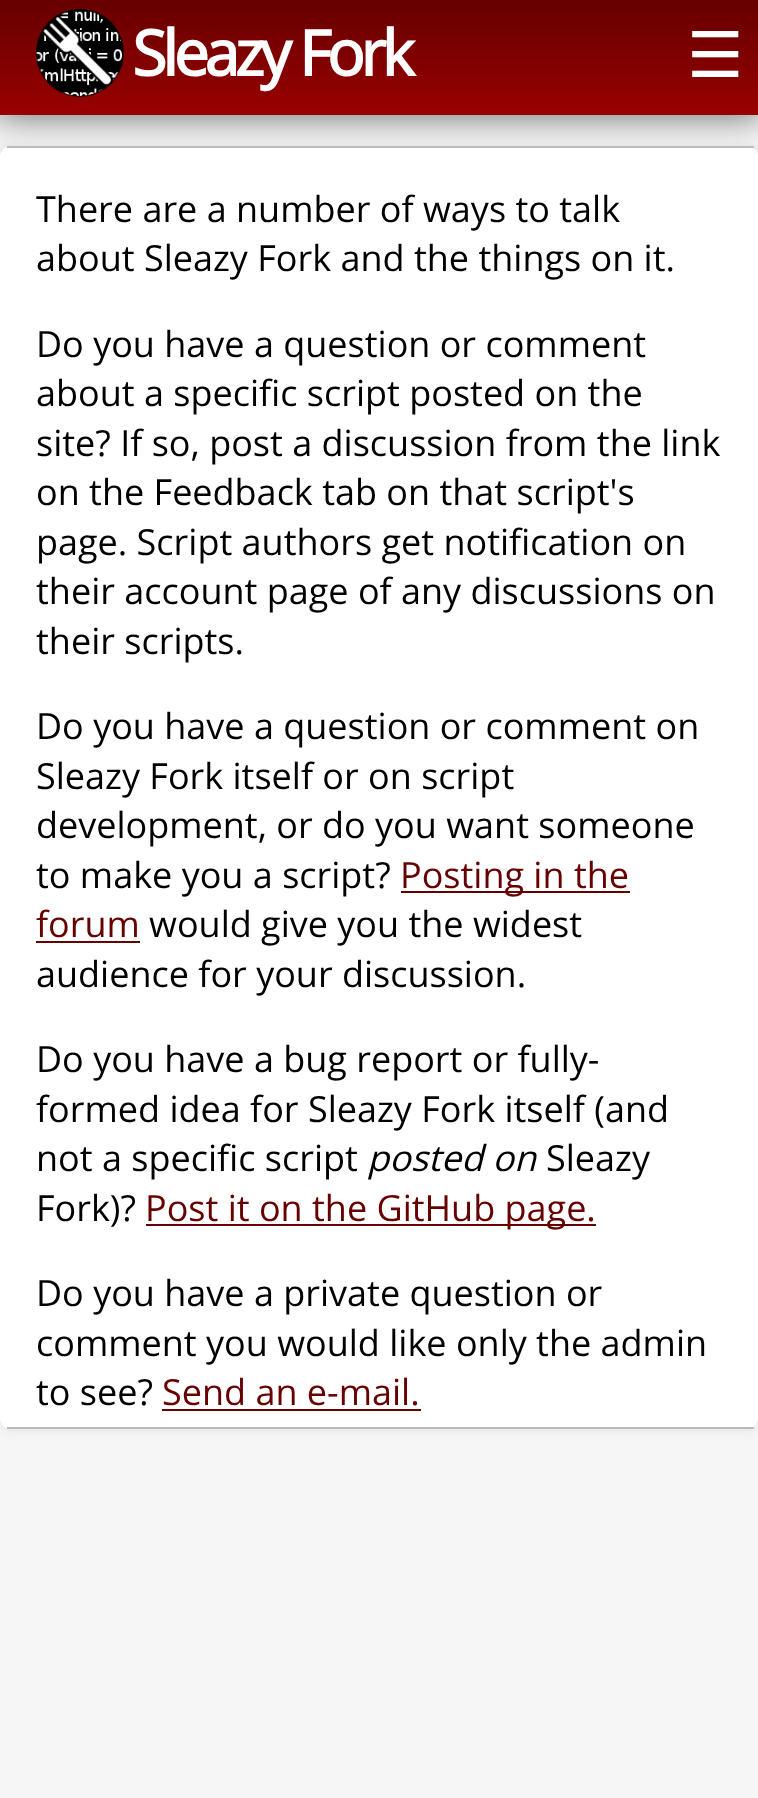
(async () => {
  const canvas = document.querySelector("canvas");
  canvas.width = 758;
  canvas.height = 1798;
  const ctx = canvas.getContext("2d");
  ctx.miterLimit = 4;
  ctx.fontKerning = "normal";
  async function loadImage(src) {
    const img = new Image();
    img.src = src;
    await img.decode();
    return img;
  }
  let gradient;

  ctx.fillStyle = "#f6f6f6";
  ctx.fillRect(0, 0, 758, 1798);
  ctx.fillStyle = "rgba(0, 0, 0, 0.5)";
  ctx.filter = "blur(17px)";
  ctx.beginPath();
  ctx.rect(-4, -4, 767, 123);
  ctx.fill();
  ctx.filter = "none";
  gradient = ctx.createLinearGradient(379, 0, 379, 115);
  gradient.addColorStop(0, "#670000");
  gradient.addColorStop(1, "#990000");
  ctx.fillStyle = gradient;
  ctx.fillRect(0, 0, 758, 115);
  ctx.drawImage(await loadImage("img/1.png"), 36, 9, 88, 88);
  ctx.fillStyle = "#dddddd";
  ctx.filter = "blur(5.5px)";
  ctx.beginPath();
  ctx.roundRect(0, 146, 758, 1283, 11);
  ctx.fill();
  ctx.filter = "none";
  ctx.fillStyle = "#ffffff";
  ctx.beginPath();
  ctx.roundRect(0, 146, 758, 1283, 11);
  ctx.fill();
  for (const [x, y, w, h, color] of [
    [7, 146, 747, 2, "#bbbbbb"],
    [7, 1427, 747, 2, "#bbbbbb"],
    [401, 891, 229, 2, "#670000"],
    [36, 941, 104, 2, "#670000"],
    [146, 1224, 450, 2, "#670000"],
    [162, 1409, 259, 2, "#670000"],
  ]) {
    ctx.fillStyle = color;
    ctx.fillRect(x, y, w, h);
  }
  ctx.letterSpacing = "-4.5px";
  ctx.font = "bold 63px Open Sans";
  ctx.fillStyle = "#ffffff";
  ctx.fillText("Sleazy Fork", 132, 76);
  ctx.letterSpacing = "0px";
  ctx.font = "63px DejaVu Sans";
  ctx.fillText("☰", 687, 77);
  ctx.font = "36px Open Sans";
  ctx.fillStyle = "#000000";
  for (const [text, x, y] of [
    ["There are a number of ways to talk", 36, 222],
    ["about Sleazy Fork and the things on it.", 36, 271],
    ["Do you have a question or comment", 36, 357],
    ["about a specific script posted on the", 36, 406],
    ["site? If so, post a discussion from the link", 36, 456],
    ["on the Feedback tab on that script's", 36, 505],
    ["page. Script authors get notification on", 36, 555],
    ["their account page of any discussions on", 36, 604],
    ["their scripts.", 36, 654],
    ["Do you have a question or comment on", 36, 739],
    ["Sleazy Fork itself or on script", 36, 789],
    ["development, or do you want someone", 36, 838],
    ["to make you a script?", 36, 888],
  ]) {
    ctx.fillText(text, x, y);
  }
  ctx.fillStyle = "#670000";
  ctx.fillText("Posting in the", 400, 888);
  ctx.fillText("forum", 36, 937);
  ctx.fillStyle = "#000000";
  for (const [text, x, y] of [
    ["would give you the widest", 149, 937],
    ["audience for your discussion.", 36, 987],
    ["Do you have a bug report or fully-", 36, 1072],
    ["formed idea for Sleazy Fork itself (and", 36, 1122],
    ["not a specific script", 36, 1171],
  ]) {
    ctx.fillText(text, x, y);
  }
  ctx.font = "italic 36px Open Sans";
  ctx.fillText("posted on", 367, 1171);
  ctx.font = "36px Open Sans";
  ctx.fillText("Sleazy", 546, 1171);
  ctx.fillText("Fork)?", 36, 1221);
  ctx.fillStyle = "#670000";
  ctx.fillText("Post it on the GitHub page.", 145, 1221);
  ctx.fillStyle = "#000000";
  for (const [text, x, y] of [
    ["Do you have a private question or", 36, 1306],
    ["comment you would like only the admin", 36, 1356],
    ["to see?", 36, 1405],
  ]) {
    ctx.fillText(text, x, y);
  }
  ctx.fillStyle = "#670000";
  ctx.fillText("Send an e-mail.", 162, 1405);
})();
